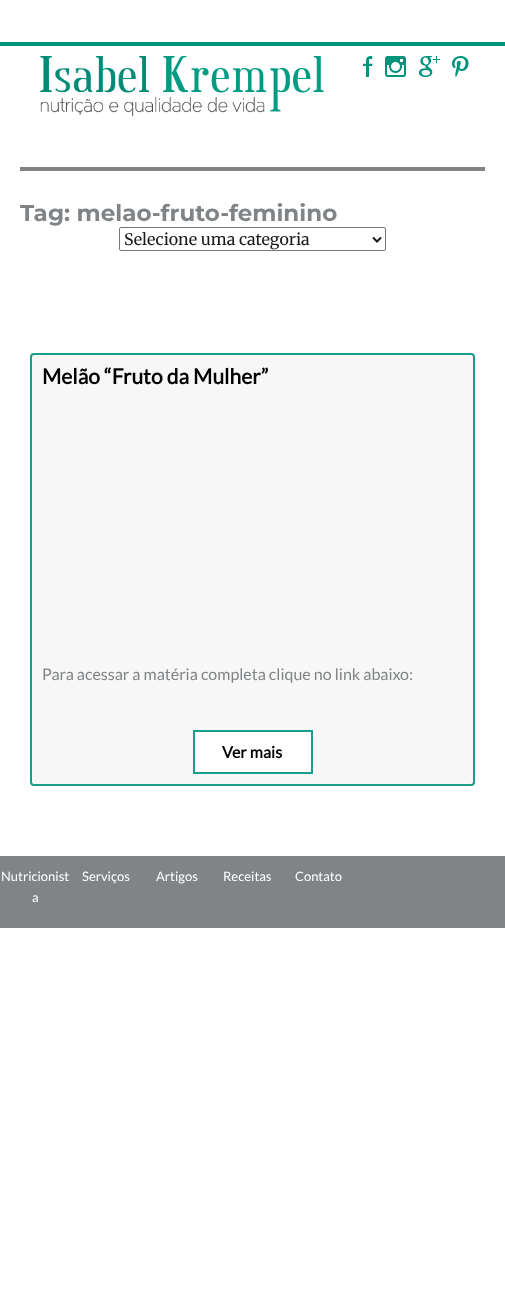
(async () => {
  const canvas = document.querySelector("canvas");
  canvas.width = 505;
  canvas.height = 1306;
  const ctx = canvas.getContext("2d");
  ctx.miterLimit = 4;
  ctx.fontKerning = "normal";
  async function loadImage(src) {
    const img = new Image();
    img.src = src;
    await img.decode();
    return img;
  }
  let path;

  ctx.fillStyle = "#ffffff";
  ctx.fillRect(0, 0, 505, 1306);
  ctx.fillStyle = "#00947d";
  ctx.fillRect(0, 42, 505, 4);
  ctx.drawImage(await loadImage("img/1.png"), 40, 56, 284, 61);
  ctx.drawImage(await loadImage("img/2.png"), 363, 56, 10, 21);
  ctx.drawImage(await loadImage("img/3.png"), 385, 56, 21, 21);
  ctx.drawImage(await loadImage("img/4.png"), 419, 56, 21, 21);
  ctx.drawImage(await loadImage("img/5.png"), 452, 56, 17, 21);
  ctx.fillStyle = "#808486";
  ctx.fillRect(20, 167, 465, 4);
  ctx.beginPath();
  ctx.roundRect(119.5, 227.5, 266, 23, 1.5);
  ctx.strokeStyle = "#767676";
  ctx.stroke();
  path = new Path2D("M373 237.5L377 241.5L381 237.5");
  ctx.strokeStyle = "#1a1a1a";
  ctx.lineWidth = 2;
  ctx.stroke(path);
  ctx.fillStyle = "#f7f7f7";
  ctx.beginPath();
  ctx.roundRect(31, 354, 443, 431, 3);
  ctx.fill();
  ctx.strokeStyle = "#199e8a";
  ctx.stroke();
  ctx.fillStyle = "#ffffff";
  ctx.beginPath();
  ctx.rect(194, 731, 118, 42);
  ctx.fill();
  ctx.stroke();
  ctx.fillStyle = "#808486";
  ctx.fillRect(0, 856, 505, 72);
  ctx.font = "bold 23px Montserrat";
  ctx.fillText("Tag: melao-fruto-feminino", 20, 221);
  ctx.font = "16px Merriweather";
  ctx.fillStyle = "#1a1a1a";
  ctx.fillText("Selecione uma categoria", 124, 245);
  ctx.font = "bold 21px Lato";
  ctx.fillStyle = "#020000";
  ctx.fillText("Melão “Fruto da Mulher”", 42, 384);
  ctx.font = "16px Lato";
  ctx.fillStyle = "#808486";
  ctx.fillText("Para acessar a matéria completa clique no link abaixo:", 42, 680);
  ctx.font = "bold 16px Lato";
  ctx.fillStyle = "#020000";
  ctx.fillText("Ver mais", 222, 758);
  ctx.font = "13px Lato";
  ctx.fillStyle = "#ffffff";
  for (const [text, x, y] of [
    ["Nutricionist", 1, 881],
    ["a", 32, 902],
    ["Serviços", 82, 881],
    ["Artigos", 156, 881],
    ["Receitas", 223, 881],
    ["Contato", 295, 881],
  ]) {
    ctx.fillText(text, x, y);
  }
})();
